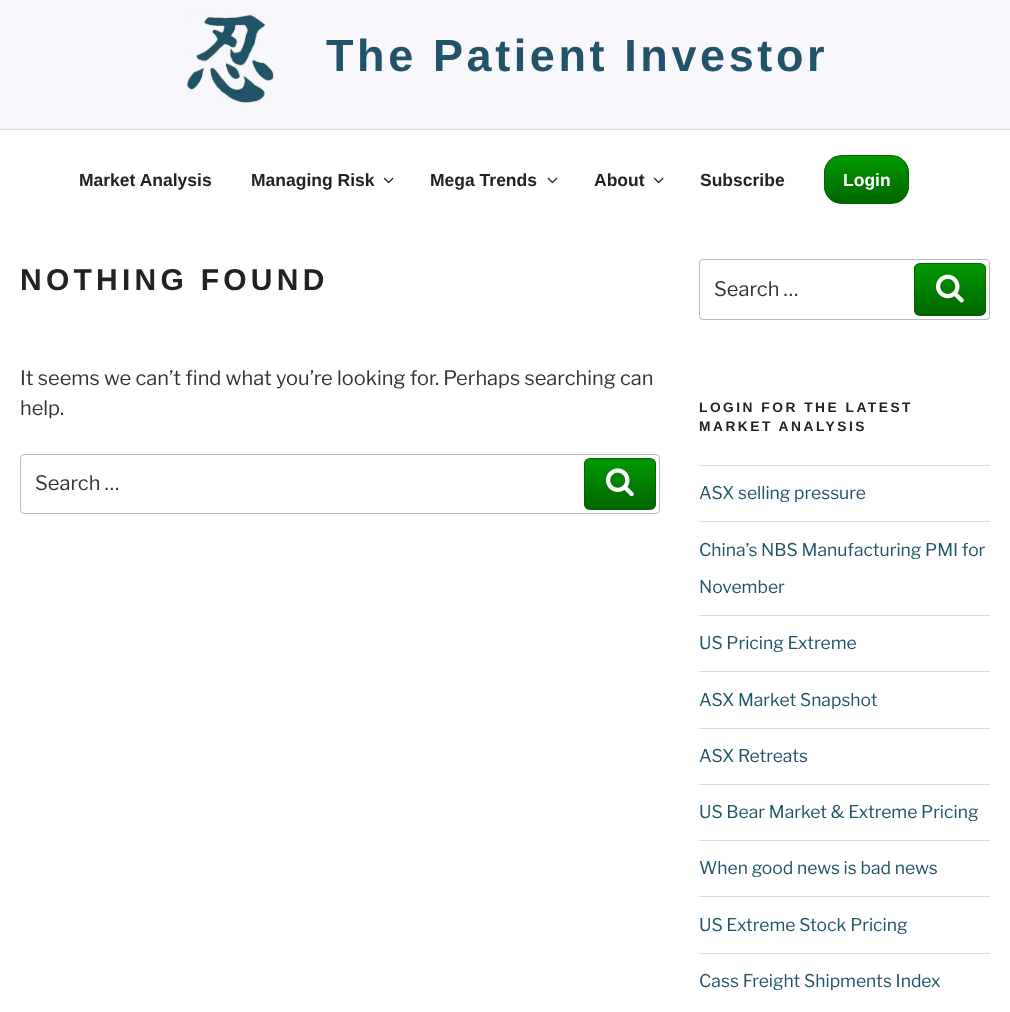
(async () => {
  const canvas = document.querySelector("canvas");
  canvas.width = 1010;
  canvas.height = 1012;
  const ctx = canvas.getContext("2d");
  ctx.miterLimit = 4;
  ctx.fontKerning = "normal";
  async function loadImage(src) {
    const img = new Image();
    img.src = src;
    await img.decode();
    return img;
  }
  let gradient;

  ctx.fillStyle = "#ffffff";
  ctx.fillRect(0, 0, 1010, 1012);
  ctx.fillStyle = "#f8f7fc";
  ctx.fillRect(0, 0, 1010, 129);
  ctx.drawImage(await loadImage("img/1.png"), 185, 13, 89, 93);
  ctx.fillStyle = "#dddddd";
  ctx.fillRect(0, 129, 1010, 1);
  ctx.drawImage(await loadImage("img/2.png"), 383, 177, 11, 7);
  ctx.drawImage(await loadImage("img/3.png"), 547, 177, 11, 7);
  ctx.drawImage(await loadImage("img/2.png"), 653, 177, 11, 7);
  ctx.save();
  ctx.beginPath();
  ctx.roundRect(824, 155, 85, 49, 18);
  ctx.clip();
  gradient = ctx.createLinearGradient(866, 156, 866, 203);
  gradient.addColorStop(0, "#009900");
  gradient.addColorStop(1, "#006600");
  ctx.fillStyle = gradient;
  ctx.fillRect(824, 156, 85, 47);
  ctx.restore();
  ctx.beginPath();
  ctx.roundRect(824.5, 155.5, 84, 48, 17.5);
  ctx.strokeStyle = "#006600";
  ctx.stroke();
  ctx.beginPath();
  ctx.roundRect(20.5, 454.5, 639, 59, 3.5);
  ctx.strokeStyle = "#bbbbbb";
  ctx.stroke();
  ctx.save();
  ctx.beginPath();
  ctx.roundRect(584, 458, 72, 52, 6);
  ctx.clip();
  gradient = ctx.createLinearGradient(620, 459, 620, 509);
  gradient.addColorStop(0, "#009900");
  gradient.addColorStop(1, "#006600");
  ctx.fillStyle = gradient;
  ctx.fillRect(584, 459, 72, 50);
  ctx.restore();
  ctx.beginPath();
  ctx.roundRect(584.5, 458.5, 71, 51, 5.5);
  ctx.strokeStyle = "#006600";
  ctx.stroke();
  ctx.drawImage(await loadImage("img/4.png"), 605, 468, 29, 28);
  ctx.beginPath();
  ctx.roundRect(699.5, 259.5, 290, 60, 3.5);
  ctx.strokeStyle = "#bbbbbb";
  ctx.stroke();
  ctx.save();
  ctx.beginPath();
  ctx.roundRect(914, 263, 72, 53, 6);
  ctx.clip();
  gradient = ctx.createLinearGradient(950, 264, 950, 315);
  gradient.addColorStop(0, "#009900");
  gradient.addColorStop(1, "#006600");
  ctx.fillStyle = gradient;
  ctx.fillRect(914, 264, 72, 51);
  ctx.restore();
  ctx.beginPath();
  ctx.roundRect(914.5, 263.5, 71, 52, 5.5);
  ctx.strokeStyle = "#006600";
  ctx.stroke();
  ctx.drawImage(await loadImage("img/5.png"), 935, 274, 29, 29);
  for (const [x, y, w, h, color] of [
    [699, 465, 291, 1, "#dddddd"],
    [699, 521, 291, 1, "#dddddd"],
    [699, 615, 291, 1, "#dddddd"],
    [699, 671, 291, 1, "#dddddd"],
    [699, 728, 291, 1, "#dddddd"],
    [699, 784, 291, 1, "#dddddd"],
    [699, 840, 291, 1, "#dddddd"],
    [699, 896, 291, 1, "#dddddd"],
    [699, 953, 291, 1, "#dddddd"],
  ]) {
    ctx.fillStyle = color;
    ctx.fillRect(x, y, w, h);
  }
  ctx.letterSpacing = "3.6px";
  ctx.font = "bold 45px Liberation Sans";
  ctx.fillStyle = "#215468";
  ctx.fillText("The Patient Investor", 326, 71);
  ctx.letterSpacing = "0px";
  ctx.font = "bold 17.5px Liberation Sans";
  ctx.fillStyle = "#222222";
  for (const [text, x, y] of [
    ["Market Analysis", 79, 186],
    ["Managing Risk", 251, 186],
    ["Mega Trends", 430, 186],
    ["About", 594, 186],
    ["Subscribe", 700, 186],
  ]) {
    ctx.fillText(text, x, y);
  }
  ctx.fillStyle = "#ffffff";
  ctx.fillText("Login", 843, 186);
  ctx.letterSpacing = "4.25px";
  ctx.font = "bold 30px Liberation Sans";
  ctx.fillStyle = "#222222";
  ctx.fillText("NOTHING FOUND", 20, 290);
  ctx.letterSpacing = "0px";
  ctx.font = "100 20px Libre Franklin";
  ctx.fillStyle = "#333333";
  for (const [text, x, y] of [
    ["It seems we can’t find what you’re looking for. Perhaps searching can", 20, 385],
    ["help.", 20, 415],
    ["Search …", 35, 490],
    ["Search …", 714, 296],
  ]) {
    ctx.fillText(text, x, y);
  }
  ctx.letterSpacing = "2.5px";
  ctx.font = "bold 13.75px Liberation Sans";
  ctx.fillStyle = "#222222";
  ctx.fillText("LOGIN FOR THE LATEST", 699, 412);
  ctx.fillText("MARKET ANALYSIS", 699, 431);
  ctx.letterSpacing = "0px";
  ctx.font = "100 17.5px Libre Franklin";
  ctx.fillStyle = "#215468";
  for (const [text, x, y] of [
    ["ASX selling pressure", 699, 499],
    ["China’s NBS Manufacturing PMI for", 699, 556],
    ["November", 699, 593],
    ["US Pricing Extreme", 699, 649],
    ["ASX Market Snapshot", 699, 706],
    ["ASX Retreats", 699, 762],
    ["US Bear Market & Extreme Pricing", 699, 818],
    ["When good news is bad news", 699, 874],
    ["US Extreme Stock Pricing", 699, 931],
    ["Cass Freight Shipments Index", 699, 987],
  ]) {
    ctx.fillText(text, x, y);
  }
})();
